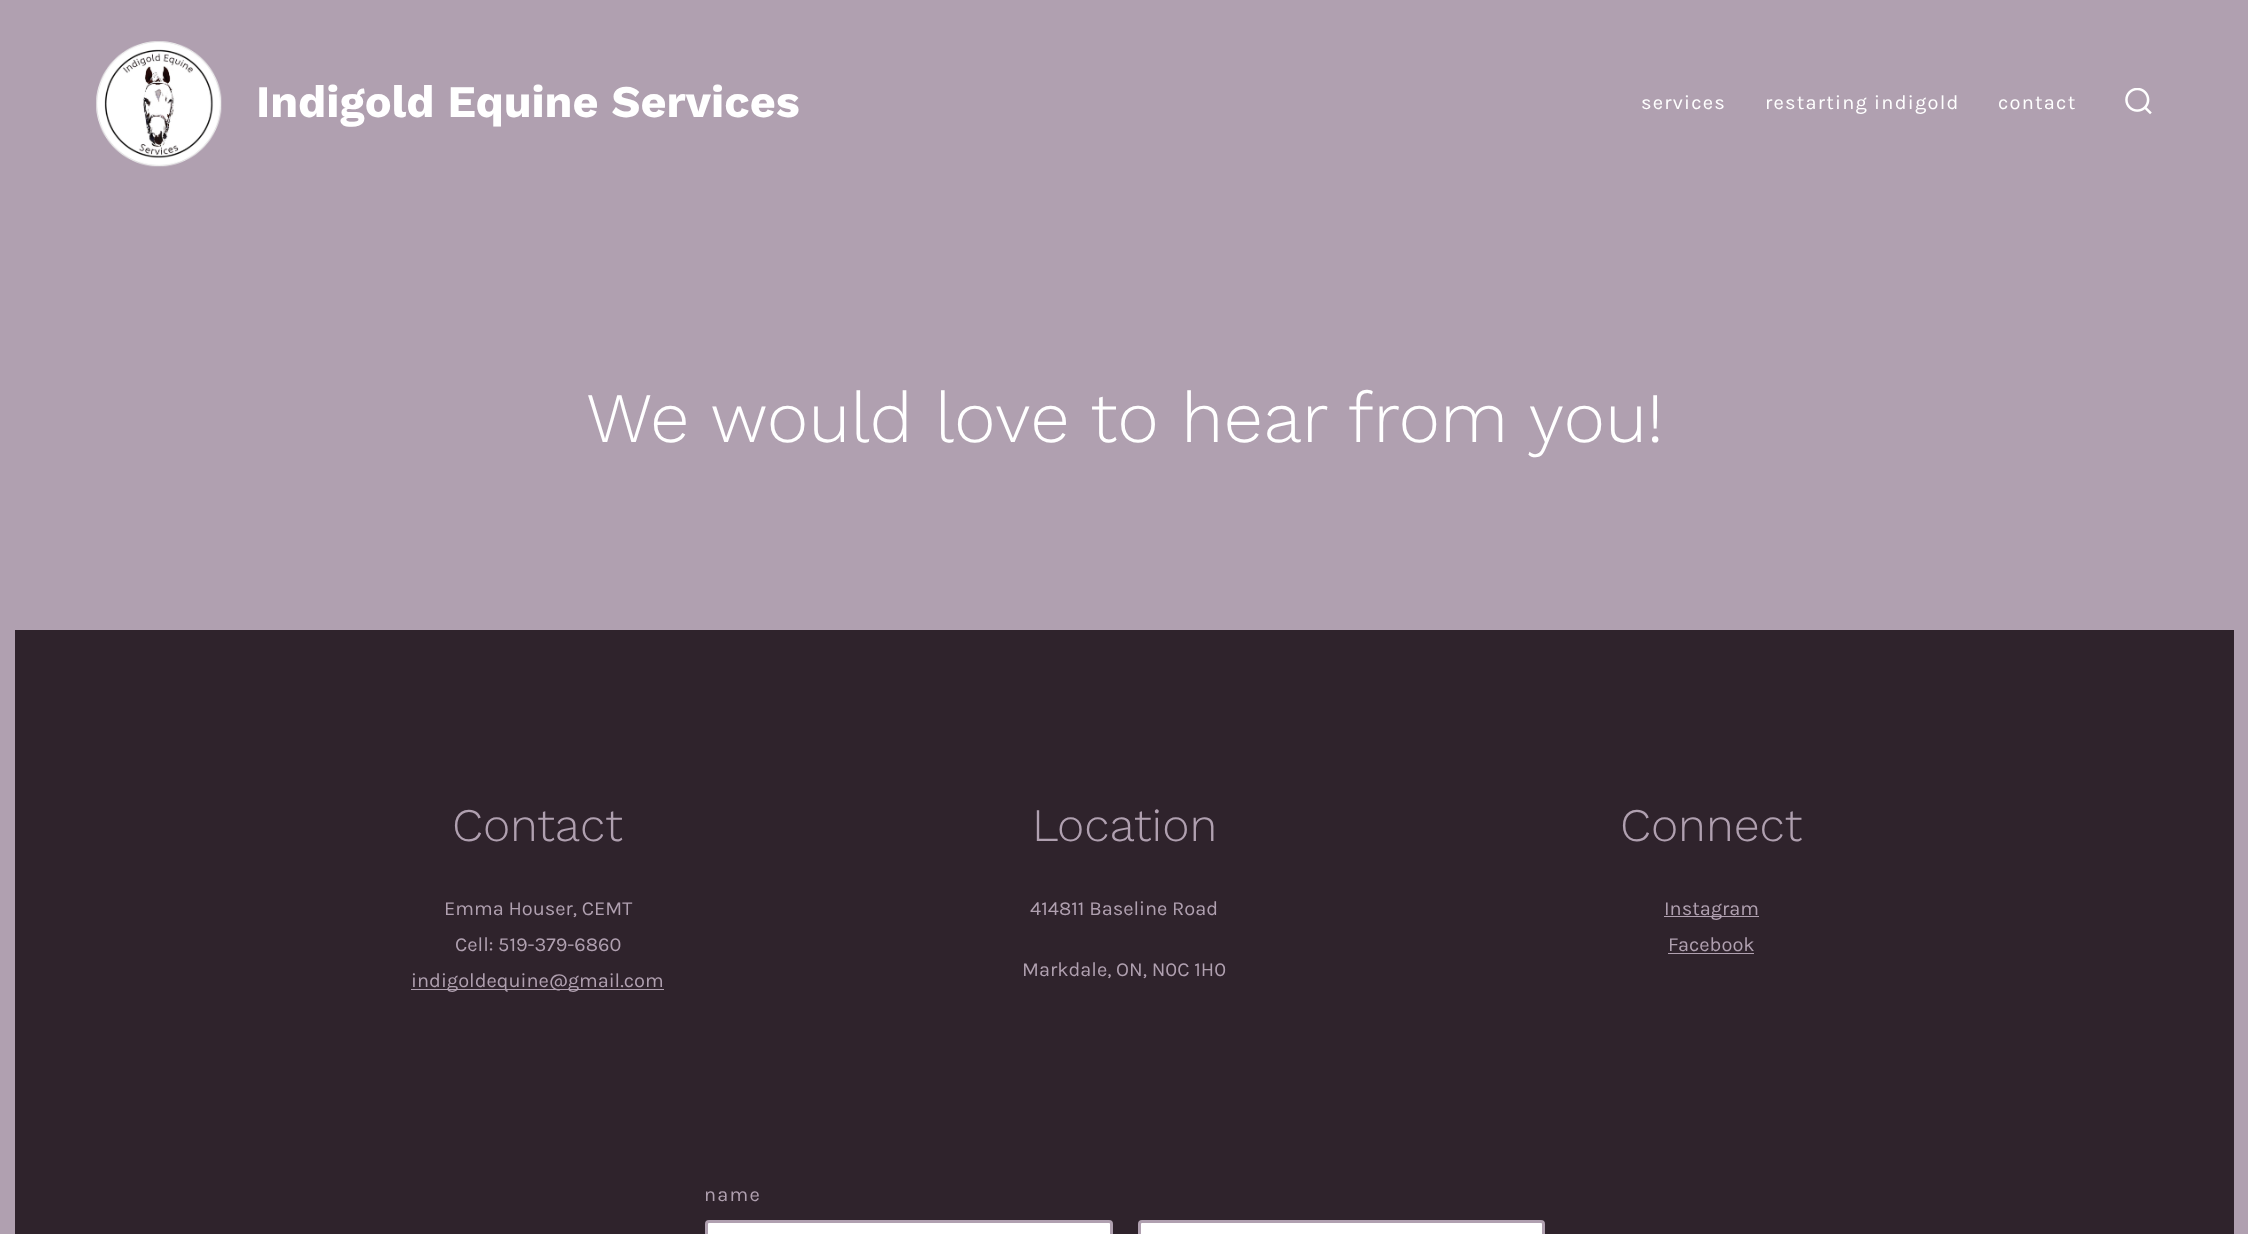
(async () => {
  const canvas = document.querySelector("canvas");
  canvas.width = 2248;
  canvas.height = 1234;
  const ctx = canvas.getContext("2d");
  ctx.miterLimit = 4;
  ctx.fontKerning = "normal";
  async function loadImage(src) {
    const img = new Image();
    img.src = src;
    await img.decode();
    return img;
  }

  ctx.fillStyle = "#2f232c";
  ctx.fillRect(0, 0, 2248, 1234);
  for (const [x, y, w, h, color] of [
    [2234, 0, 14, 1234, "#b0a0b0"],
    [0, 0, 15, 1234, "#b0a0b0"],
    [15, 0, 2219, 630, "#b0a0b0"],
  ]) {
    ctx.fillStyle = color;
    ctx.fillRect(x, y, w, h);
  }
  ctx.drawImage(await loadImage("img/1.png"), 96, 41, 126, 126);
  ctx.drawImage(await loadImage("img/2.png"), 2125, 88, 27, 27);
  for (const [x, y, w, h, color] of [
    [411, 989, 253, 1, "#b0a0b0"],
    [1664, 916, 95, 1, "#b0a0b0"],
    [1668, 953, 86, 1, "#b0a0b0"],
  ]) {
    ctx.fillStyle = color;
    ctx.fillRect(x, y, w, h);
  }
  ctx.fillStyle = "#ffffff";
  ctx.beginPath();
  ctx.roundRect(706.5, 1221.5, 405, 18, 2.5);
  ctx.fill();
  ctx.strokeStyle = "#b0a0b0";
  ctx.lineWidth = 3;
  ctx.stroke();
  ctx.beginPath();
  ctx.roundRect(1139.5, 1221.5, 404, 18, 2.5);
  ctx.fill();
  ctx.stroke();
  ctx.font = "bold 45px Work Sans";
  ctx.fillText("Indigold Equine Services", 256, 117);
  ctx.letterSpacing = "1.25px";
  ctx.font = "20px Karla";
  for (const [text, x, y] of [
    ["services", 1641, 109],
    ["restarting indigold", 1765, 109],
    ["contact", 1998, 109],
  ]) {
    ctx.fillText(text, x, y);
  }
  ctx.letterSpacing = "0px";
  ctx.font = "300 71px Work Sans";
  ctx.fillText("We would love to hear from you!", 586, 442);
  ctx.font = "300 46.5px Work Sans";
  ctx.fillStyle = "#b0a0b0";
  ctx.fillText("Contact", 452, 841);
  ctx.font = "20px Karla";
  for (const [text, x, y] of [
    ["Emma Houser, CEMT", 444, 915],
    ["Cell: 519-379-6860", 455, 951],
    ["indigoldequine@gmail.com", 411, 987],
  ]) {
    ctx.fillText(text, x, y);
  }
  ctx.font = "300 46.5px Work Sans";
  ctx.fillText("Location", 1032, 841);
  ctx.font = "20px Karla";
  ctx.fillText("414811 Baseline Road", 1030, 915);
  ctx.fillText("Markdale, ON, N0C 1H0", 1022, 976);
  ctx.font = "300 46.5px Work Sans";
  ctx.fillText("Connect", 1620, 841);
  ctx.font = "20px Karla";
  ctx.fillText("Instagram", 1664, 915);
  ctx.fillText("Facebook", 1668, 951);
  ctx.letterSpacing = "1.25px";
  ctx.fillText("name", 704, 1201);
})();
